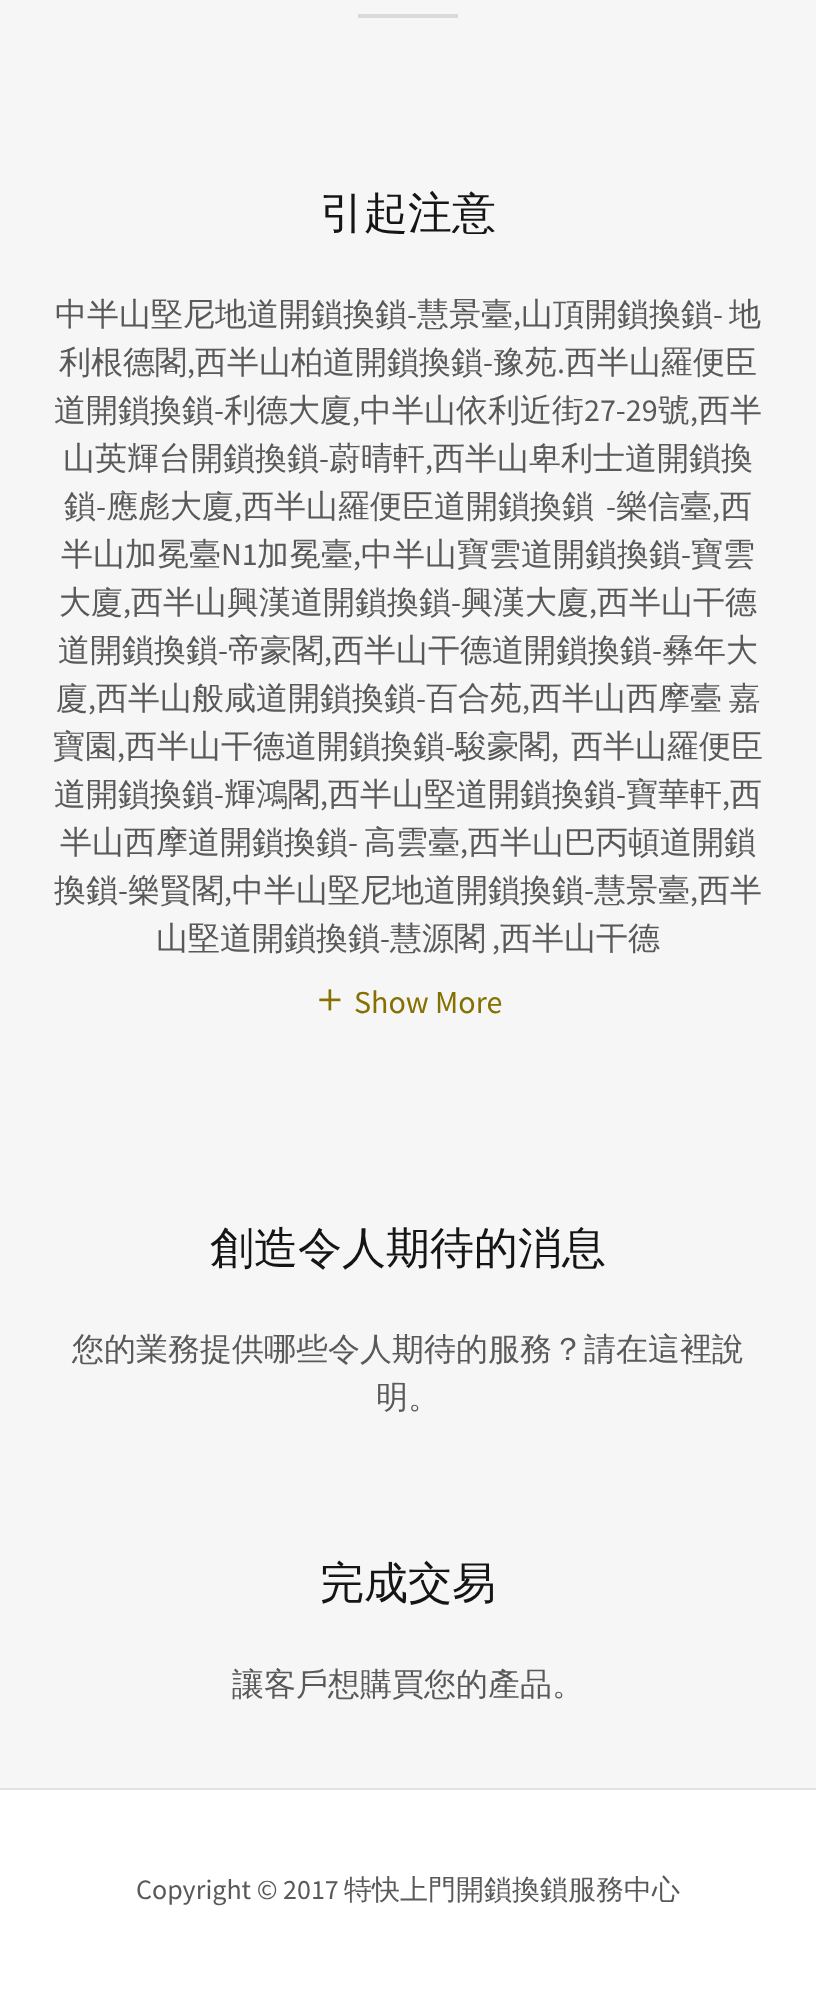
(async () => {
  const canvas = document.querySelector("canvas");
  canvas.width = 816;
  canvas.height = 1991;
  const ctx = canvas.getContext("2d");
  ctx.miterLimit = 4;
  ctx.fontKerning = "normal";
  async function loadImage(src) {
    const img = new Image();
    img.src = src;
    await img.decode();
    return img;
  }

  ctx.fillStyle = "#ffffff";
  ctx.fillRect(0, 0, 816, 1991);
  ctx.fillStyle = "#f6f6f6";
  ctx.fillRect(0, 0, 816, 1788);
  ctx.fillStyle = "#dadada";
  ctx.fillRect(358, 14, 100, 4);
  ctx.drawImage(await loadImage("img/1.png"), 319, 989, 22, 22);
  ctx.fillStyle = "#e2e2e2";
  ctx.fillRect(0, 1788, 816, 2);
  ctx.font = "500 44px WenQuanYi Zen Hei";
  ctx.fillStyle = "#151515";
  ctx.fillText("引起注意", 320, 228);
  ctx.font = "500 32px WenQuanYi Zen Hei";
  ctx.fillStyle = "#595959";
  ctx.fillText("中半山堅尼地道開鎖換鎖", 55, 325);
  ctx.font = "32px Source Sans Pro";
  ctx.fillText("-", 407, 325);
  ctx.font = "500 32px WenQuanYi Zen Hei";
  ctx.fillText("慧景臺", 417, 325);
  ctx.fillText("山頂開鎖換鎖", 521, 325);
  ctx.font = "32px Source Sans Pro";
  ctx.fillText("-", 713, 325);
  ctx.font = "500 32px WenQuanYi Zen Hei";
  ctx.fillText("地", 729, 325);
  ctx.font = "32px Source Sans Pro";
  ctx.fillText(",", 513, 325);
  ctx.font = "500 32px WenQuanYi Zen Hei";
  ctx.fillText("利根德閣", 59, 373);
  ctx.fillText("西半山柏道開鎖換鎖", 195, 373);
  ctx.font = "32px Source Sans Pro";
  ctx.fillText("-", 483, 373);
  ctx.font = "500 32px WenQuanYi Zen Hei";
  ctx.fillText("豫苑", 493, 373);
  ctx.fillText("西半山羅便臣", 565, 373);
  ctx.font = "32px Source Sans Pro";
  ctx.fillText(",", 187, 373);
  ctx.fillText(".", 557, 373);
  ctx.font = "500 32px WenQuanYi Zen Hei";
  ctx.fillText("道開鎖換鎖", 54, 421);
  ctx.font = "32px Source Sans Pro";
  ctx.fillText("-", 214, 421);
  ctx.font = "500 32px WenQuanYi Zen Hei";
  ctx.fillText("利德大廈", 224, 421);
  ctx.fillText("中半山依利近街", 360, 421);
  ctx.font = "32px Source Sans Pro";
  ctx.fillText("27-29", 584, 421);
  ctx.font = "500 32px WenQuanYi Zen Hei";
  ctx.fillText("號", 658, 421);
  ctx.fillText("西半", 698, 421);
  ctx.font = "32px Source Sans Pro";
  ctx.fillText(",", 352, 421);
  ctx.fillText(",", 690, 421);
  ctx.font = "500 32px WenQuanYi Zen Hei";
  ctx.fillText("山英輝台開鎖換鎖", 63, 469);
  ctx.font = "32px Source Sans Pro";
  ctx.fillText("-", 319, 469);
  ctx.font = "500 32px WenQuanYi Zen Hei";
  ctx.fillText("蔚晴軒", 329, 469);
  ctx.fillText("西半山卑利士道開鎖換", 433, 469);
  ctx.font = "32px Source Sans Pro";
  ctx.fillText(",", 425, 469);
  ctx.font = "500 32px WenQuanYi Zen Hei";
  ctx.fillText("鎖", 64, 517);
  ctx.font = "32px Source Sans Pro";
  ctx.fillText("-", 96, 517);
  ctx.font = "500 32px WenQuanYi Zen Hei";
  ctx.fillText("應彪大廈", 106, 517);
  ctx.fillText("西半山羅便臣道開鎖換鎖", 242, 517);
  ctx.font = "32px Source Sans Pro";
  ctx.fillText("-", 606, 517);
  ctx.font = "500 32px WenQuanYi Zen Hei";
  ctx.fillText("樂信臺", 616, 517);
  ctx.fillText("西", 720, 517);
  ctx.font = "32px Source Sans Pro";
  ctx.fillText(",", 234, 517);
  ctx.fillText(",", 712, 517);
  ctx.font = "500 32px WenQuanYi Zen Hei";
  ctx.fillText("半山加冕臺", 61, 565);
  ctx.font = "32px Source Sans Pro";
  ctx.fillText("N1", 221, 565);
  ctx.font = "500 32px WenQuanYi Zen Hei";
  ctx.fillText("加冕臺", 257, 565);
  ctx.fillText("中半山寶雲道開鎖換鎖", 361, 565);
  ctx.font = "32px Source Sans Pro";
  ctx.fillText("-", 681, 565);
  ctx.font = "500 32px WenQuanYi Zen Hei";
  ctx.fillText("寶雲", 691, 565);
  ctx.font = "32px Source Sans Pro";
  ctx.fillText(",", 353, 565);
  ctx.font = "500 32px WenQuanYi Zen Hei";
  ctx.fillText("大廈", 59, 613);
  ctx.fillText("西半山興漢道開鎖換鎖", 131, 613);
  ctx.font = "32px Source Sans Pro";
  ctx.fillText("-", 451, 613);
  ctx.font = "500 32px WenQuanYi Zen Hei";
  ctx.fillText("興漢大廈", 461, 613);
  ctx.fillText("西半山干德", 597, 613);
  ctx.font = "32px Source Sans Pro";
  ctx.fillText(",", 123, 613);
  ctx.fillText(",", 589, 613);
  ctx.font = "500 32px WenQuanYi Zen Hei";
  ctx.fillText("道開鎖換鎖", 58, 661);
  ctx.font = "32px Source Sans Pro";
  ctx.fillText("-", 218, 661);
  ctx.font = "500 32px WenQuanYi Zen Hei";
  ctx.fillText("帝豪閣", 228, 661);
  ctx.fillText("西半山干德道開鎖換鎖", 332, 661);
  ctx.font = "32px Source Sans Pro";
  ctx.fillText("-", 652, 661);
  ctx.font = "500 32px WenQuanYi Zen Hei";
  ctx.fillText("彝年大", 662, 661);
  ctx.font = "32px Source Sans Pro";
  ctx.fillText(",", 324, 661);
  ctx.font = "500 32px WenQuanYi Zen Hei";
  ctx.fillText("廈", 56, 709);
  ctx.fillText("西半山般咸道開鎖換鎖", 96, 709);
  ctx.font = "32px Source Sans Pro";
  ctx.fillText("-", 416, 709);
  ctx.font = "500 32px WenQuanYi Zen Hei";
  ctx.fillText("百合苑", 426, 709);
  ctx.wordSpacing = "-3px";
  ctx.fillText("西半山西摩臺 嘉", 530, 709);
  ctx.wordSpacing = "0px";
  ctx.font = "32px Source Sans Pro";
  ctx.fillText(",", 88, 709);
  ctx.fillText(",", 522, 709);
  ctx.font = "500 32px WenQuanYi Zen Hei";
  ctx.fillText("寶園", 53, 757);
  ctx.fillText("西半山干德道開鎖換鎖", 125, 757);
  ctx.font = "32px Source Sans Pro";
  ctx.fillText("-", 445, 757);
  ctx.font = "500 32px WenQuanYi Zen Hei";
  ctx.fillText("駿豪閣", 455, 757);
  ctx.fillText("西半山羅便臣", 571, 757);
  ctx.font = "32px Source Sans Pro";
  ctx.fillText(",", 117, 757);
  ctx.fillText(",", 551, 757);
  ctx.font = "500 32px WenQuanYi Zen Hei";
  ctx.fillText("道開鎖換鎖", 54, 805);
  ctx.font = "32px Source Sans Pro";
  ctx.fillText("-", 214, 805);
  ctx.font = "500 32px WenQuanYi Zen Hei";
  ctx.fillText("輝鴻閣", 224, 805);
  ctx.fillText("西半山堅道開鎖換鎖", 328, 805);
  ctx.font = "32px Source Sans Pro";
  ctx.fillText("-", 616, 805);
  ctx.font = "500 32px WenQuanYi Zen Hei";
  ctx.fillText("寶華軒", 626, 805);
  ctx.fillText("西", 730, 805);
  ctx.font = "32px Source Sans Pro";
  ctx.fillText(",", 320, 805);
  ctx.fillText(",", 722, 805);
  ctx.font = "500 32px WenQuanYi Zen Hei";
  ctx.fillText("半山西摩道開鎖換鎖", 60, 853);
  ctx.font = "32px Source Sans Pro";
  ctx.fillText("-", 348, 853);
  ctx.font = "500 32px WenQuanYi Zen Hei";
  ctx.fillText("高雲臺", 364, 853);
  ctx.fillText("西半山巴丙頓道開鎖", 468, 853);
  ctx.font = "32px Source Sans Pro";
  ctx.fillText(",", 460, 853);
  ctx.font = "500 32px WenQuanYi Zen Hei";
  ctx.fillText("換鎖", 54, 901);
  ctx.font = "32px Source Sans Pro";
  ctx.fillText("-", 118, 901);
  ctx.font = "500 32px WenQuanYi Zen Hei";
  ctx.fillText("樂賢閣", 128, 901);
  ctx.fillText("中半山堅尼地道開鎖換鎖", 232, 901);
  ctx.font = "32px Source Sans Pro";
  ctx.fillText("-", 584, 901);
  ctx.font = "500 32px WenQuanYi Zen Hei";
  ctx.fillText("慧景臺", 594, 901);
  ctx.fillText("西半", 698, 901);
  ctx.font = "32px Source Sans Pro";
  ctx.fillText(",", 224, 901);
  ctx.fillText(",", 690, 901);
  ctx.font = "500 32px WenQuanYi Zen Hei";
  ctx.fillText("山堅道開鎖換鎖", 156, 949);
  ctx.font = "32px Source Sans Pro";
  ctx.fillText("-", 380, 949);
  ctx.font = "500 32px WenQuanYi Zen Hei";
  ctx.fillText("慧源閣", 390, 949);
  ctx.fillText("西半山干德", 500, 949);
  ctx.font = "32px Source Sans Pro";
  ctx.fillText(",", 492, 949);
  ctx.fillStyle = "#857001";
  ctx.fillText("Show More", 354, 1013);
  ctx.font = "500 44px WenQuanYi Zen Hei";
  ctx.fillStyle = "#151515";
  ctx.fillText("創造令人期待的消息", 210, 1263);
  ctx.font = "500 32px WenQuanYi Zen Hei";
  ctx.fillStyle = "#595959";
  ctx.fillText("您的業務提供哪些令人期待的服務？請在這裡說", 72, 1360);
  ctx.fillText("明。", 376, 1408);
  ctx.font = "500 44px WenQuanYi Zen Hei";
  ctx.fillStyle = "#151515";
  ctx.fillText("完成交易", 320, 1598);
  ctx.font = "500 32px WenQuanYi Zen Hei";
  ctx.fillStyle = "#595959";
  ctx.fillText("讓客戶想購買您的產品。", 232, 1695);
  ctx.font = "28px Source Sans Pro";
  ctx.fillText("Copyright © 2017", 136, 1899);
  ctx.font = "500 28px WenQuanYi Zen Hei";
  ctx.fillText("特快上門開鎖換鎖服務中心", 344, 1899);
})();
